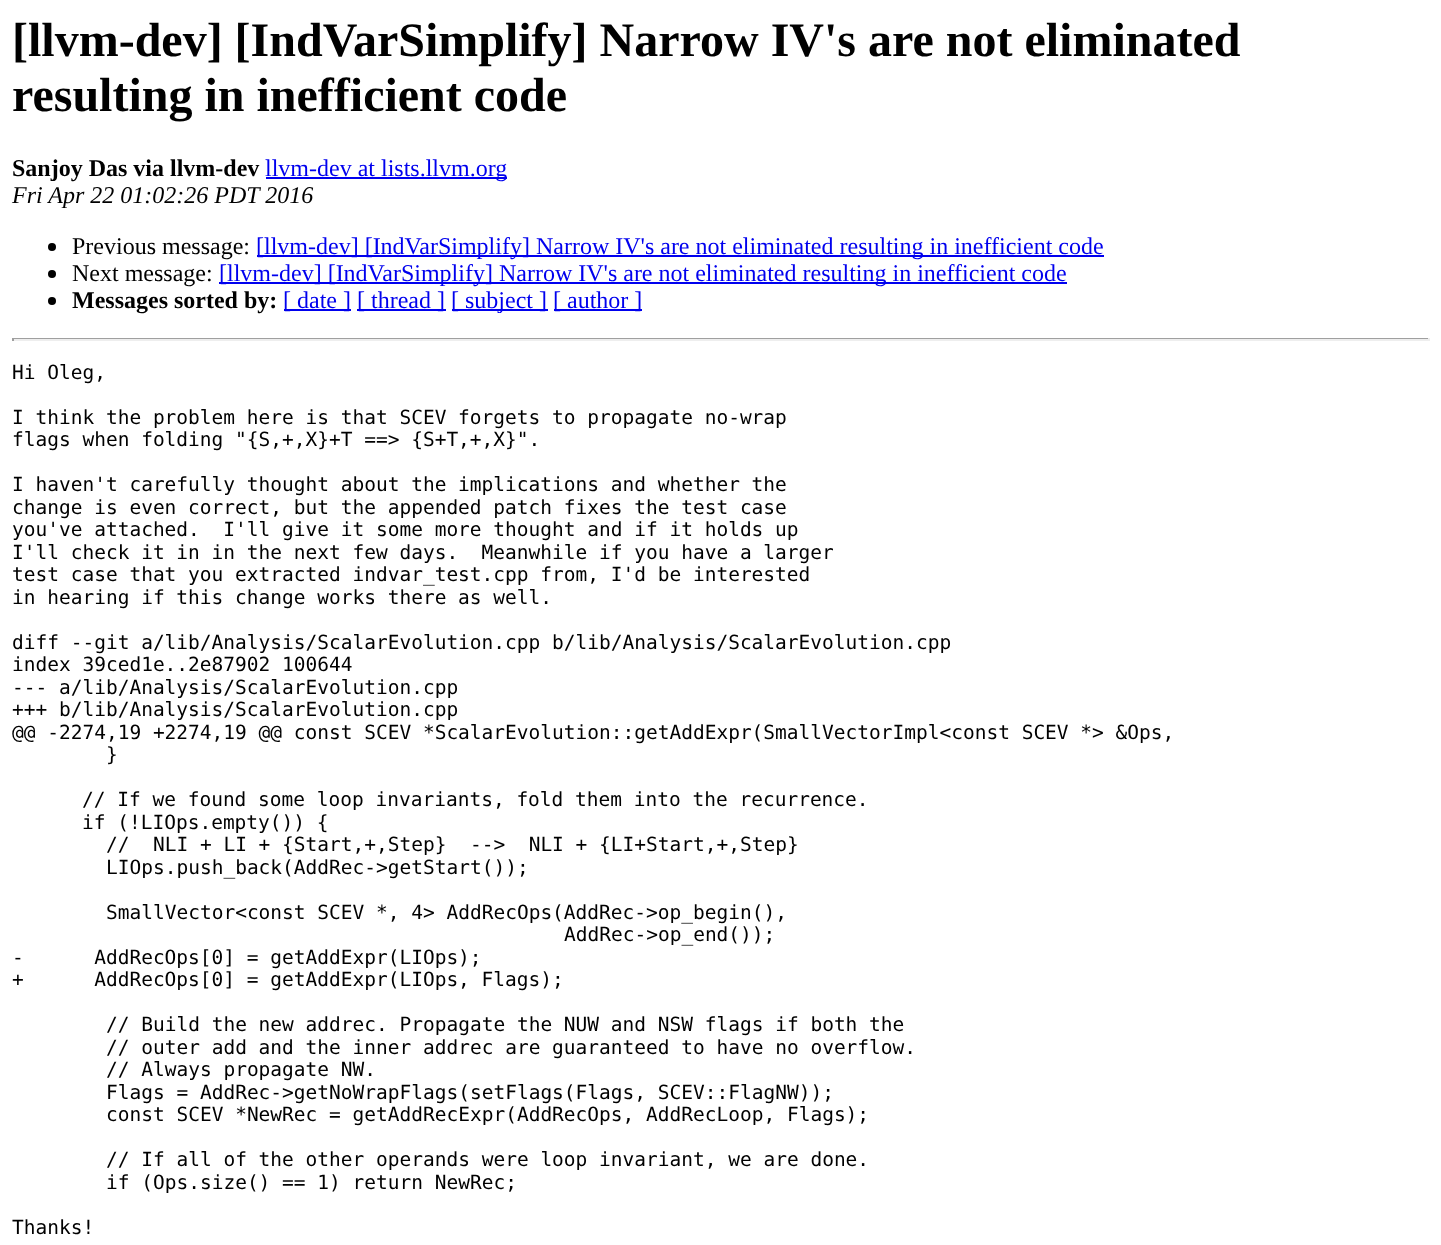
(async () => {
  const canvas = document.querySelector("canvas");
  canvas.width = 1441;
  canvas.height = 1245;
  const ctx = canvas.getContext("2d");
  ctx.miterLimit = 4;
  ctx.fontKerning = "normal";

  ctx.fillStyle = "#ffffff";
  ctx.fillRect(0, 0, 1441, 1245);
  ctx.fillStyle = "#0000ee";
  ctx.fillRect(266, 177, 241, 2);
  ctx.fillStyle = "#000000";
  ctx.beginPath();
  ctx.arc(52, 247, 4, 0, Math.PI * 2);
  ctx.fill();
  ctx.fillStyle = "#0000ee";
  ctx.fillRect(257, 255, 847, 2);
  ctx.fillStyle = "#000000";
  ctx.beginPath();
  ctx.arc(52, 274, 4, 0, Math.PI * 2);
  ctx.fill();
  ctx.fillStyle = "#0000ee";
  ctx.fillRect(219, 282, 848, 2);
  ctx.fillStyle = "#000000";
  ctx.beginPath();
  ctx.arc(52, 301, 4, 0, Math.PI * 2);
  ctx.fill();
  for (const [x, y, w, h, color] of [
    [284, 309, 67, 2, "#0000ee"],
    [357, 309, 89, 2, "#0000ee"],
    [452, 309, 96, 2, "#0000ee"],
    [554, 309, 88, 2, "#0000ee"],
    [12, 338, 1418, 1, "#9f9f9f"],
    [1428, 338, 2, 3, "#eeeeee"],
    [12, 339, 1418, 2, "#eeeeee"],
    [12, 338, 2, 3, "#9f9f9f"],
  ]) {
    ctx.fillStyle = color;
    ctx.fillRect(x, y, w, h);
  }
  ctx.font = "bold 48px Liberation Serif";
  ctx.fillStyle = "#000000";
  ctx.fillText("[llvm-dev] [IndVarSimplify] Narrow IV's are not eliminated", 12, 56);
  ctx.fillText("resulting in inefficient code", 12, 111);
  ctx.font = "bold 24px Liberation Serif";
  ctx.fillText("Sanjoy Das via llvm-dev", 12, 176);
  ctx.font = "24px Liberation Serif";
  ctx.fillStyle = "#0000ee";
  ctx.fillText("llvm-dev at lists.llvm.org", 265, 176);
  ctx.font = "italic 24px Liberation Serif";
  ctx.fillStyle = "#000000";
  ctx.fillText("Fri Apr 22 01:02:26 PDT 2016", 12, 203);
  ctx.font = "24px Liberation Serif";
  ctx.fillText("Previous message:", 72, 254);
  ctx.fillStyle = "#0000ee";
  ctx.fillText("[llvm-dev] [IndVarSimplify] Narrow IV's are not eliminated resulting in inefficient code", 256, 254);
  ctx.fillStyle = "#000000";
  ctx.fillText("Next message:", 72, 281);
  ctx.fillStyle = "#0000ee";
  ctx.fillText("[llvm-dev] [IndVarSimplify] Narrow IV's are not eliminated resulting in inefficient code", 219, 281);
  ctx.font = "bold 24px Liberation Serif";
  ctx.fillStyle = "#000000";
  ctx.fillText("Messages sorted by:", 72, 308);
  ctx.font = "24px Liberation Serif";
  ctx.fillStyle = "#0000ee";
  for (const [text, x, y] of [
    ["[ date ]", 283, 308],
    ["[ thread ]", 357, 308],
    ["[ subject ]", 451, 308],
    ["[ author ]", 553, 308],
  ]) {
    ctx.fillText(text, x, y);
  }
  ctx.font = "19.5px DejaVu Sans Mono";
  ctx.fillStyle = "#000000";
  for (const [text, x, y] of [
    ["Hi Oleg,", 12, 379],
    ["I think the problem here is that SCEV forgets to propagate no-wrap", 12, 424],
    ["flags when folding \"{S,+,X}+T ==> {S+T,+,X}\".", 12, 446],
    ["I haven't carefully thought about the implications and whether the", 12, 491],
    ["change is even correct, but the appended patch fixes the test case", 12, 514],
    ["you've attached.  I'll give it some more thought and if it holds up", 12, 536],
    ["I'll check it in in the next few days.  Meanwhile if you have a larger", 12, 559],
    ["test case that you extracted indvar_test.cpp from, I'd be interested", 12, 581],
    ["in hearing if this change works there as well.", 12, 604],
    ["diff --git a/lib/Analysis/ScalarEvolution.cpp b/lib/Analysis/ScalarEvolution.cpp", 12, 649],
    ["index 39ced1e..2e87902 100644", 12, 671],
    ["--- a/lib/Analysis/ScalarEvolution.cpp", 12, 694],
    ["+++ b/lib/Analysis/ScalarEvolution.cpp", 12, 716],
    ["@@ -2274,19 +2274,19 @@ const SCEV *ScalarEvolution::getAddExpr(SmallVectorImpl<const SCEV *> &Ops,", 12, 739],
    ["}", 106, 761],
    ["// If we found some loop invariants, fold them into the recurrence.", 82, 806],
    ["if (!LIOps.empty()) {", 82, 829],
    ["//  NLI + LI + {Start,+,Step}  -->  NLI + {LI+Start,+,Step}", 106, 851],
    ["LIOps.push_back(AddRec->getStart());", 106, 874],
    ["SmallVector<const SCEV *, 4> AddRecOps(AddRec->op_begin(),", 106, 919],
    ["AddRec->op_end());", 564, 941],
    ["-      AddRecOps[0] = getAddExpr(LIOps);", 12, 964],
    ["+      AddRecOps[0] = getAddExpr(LIOps, Flags);", 12, 986],
    ["// Build the new addrec. Propagate the NUW and NSW flags if both the", 106, 1031],
    ["// outer add and the inner addrec are guaranteed to have no overflow.", 106, 1054],
    ["// Always propagate NW.", 106, 1076],
    ["Flags = AddRec->getNoWrapFlags(setFlags(Flags, SCEV::FlagNW));", 106, 1099],
    ["const SCEV *NewRec = getAddRecExpr(AddRecOps, AddRecLoop, Flags);", 106, 1121],
    ["// If all of the other operands were loop invariant, we are done.", 106, 1166],
    ["if (Ops.size() == 1) return NewRec;", 106, 1189],
    ["Thanks!", 12, 1234],
  ]) {
    ctx.fillText(text, x, y);
  }
})();
